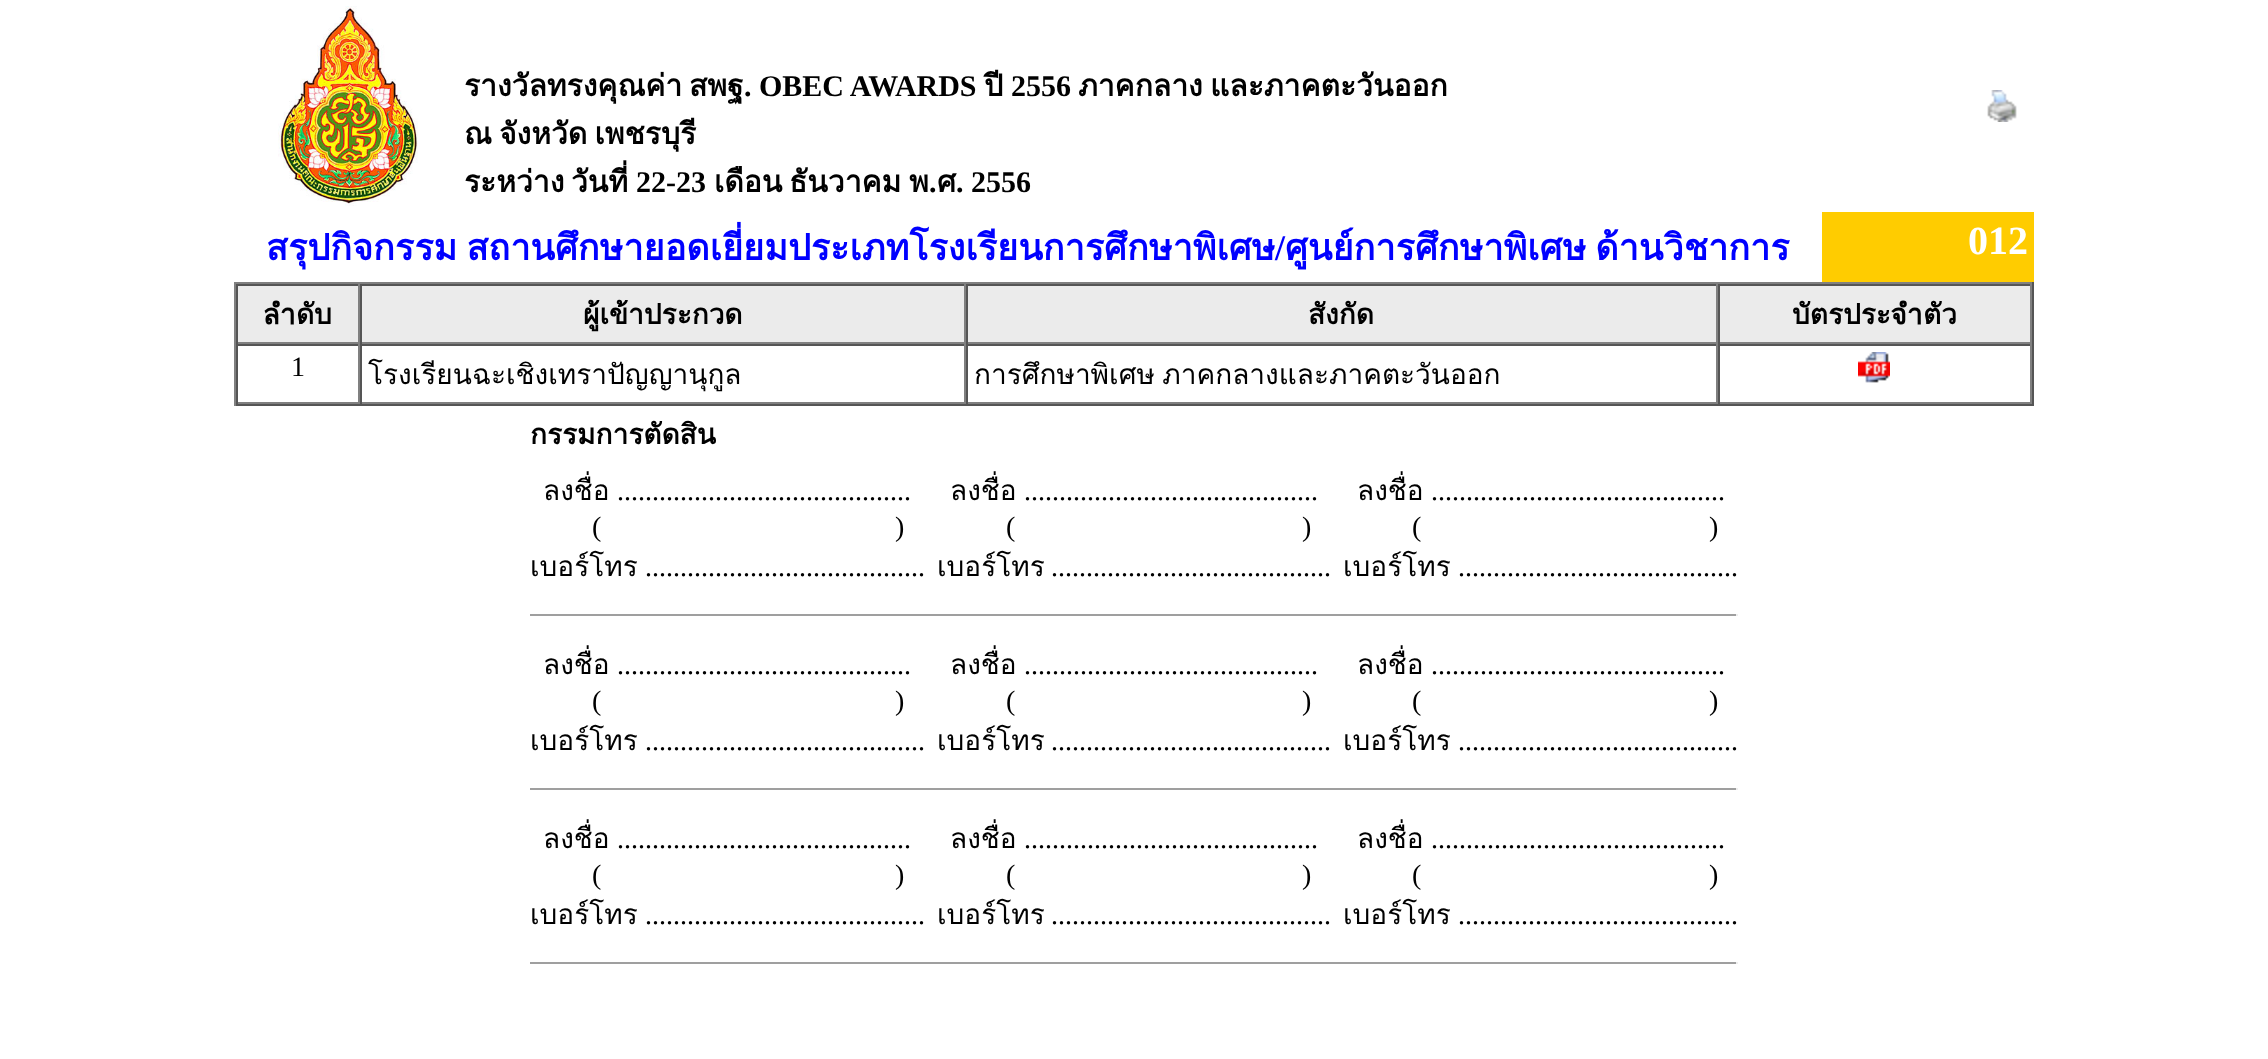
(async () => {
  const canvas = document.querySelector("canvas");
  canvas.width = 2268;
  canvas.height = 1059;
  const ctx = canvas.getContext("2d");
  ctx.miterLimit = 4;
  ctx.fontKerning = "normal";
  async function loadImage(src) {
    const img = new Image();
    img.src = src;
    await img.decode();
    return img;
  }

  ctx.fillStyle = "#ffffff";
  ctx.fillRect(0, 0, 2268, 1059);
  ctx.drawImage(await loadImage("img/1.png"), 278, 6, 140, 200);
  ctx.drawImage(await loadImage("img/2.png"), 1987, 90, 30, 32);
  for (const [x, y, w, h, color] of [
    [1822, 212, 212, 70, "#ffcc00"],
    [234, 282, 1800, 2, "#808080"],
    [2032, 282, 2, 124, "#555555"],
    [234, 404, 1800, 2, "#555555"],
    [234, 282, 2, 124, "#808080"],
    [238, 286, 120, 56, "#ebebeb"],
    [236, 284, 1796, 2, "#555555"],
    [358, 284, 2, 60, "#808080"],
    [236, 342, 124, 2, "#808080"],
    [236, 284, 2, 60, "#555555"],
    [362, 286, 602, 56, "#ebebeb"],
    [964, 284, 2, 60, "#808080"],
    [360, 342, 606, 2, "#808080"],
    [360, 284, 2, 60, "#555555"],
    [968, 286, 748, 56, "#ebebeb"],
    [1716, 284, 2, 60, "#808080"],
    [966, 342, 752, 2, "#808080"],
    [966, 284, 2, 60, "#555555"],
    [1720, 286, 310, 56, "#ebebeb"],
    [2030, 284, 2, 60, "#808080"],
    [1718, 342, 314, 2, "#808080"],
    [1718, 284, 2, 60, "#555555"],
    [236, 344, 1796, 2, "#555555"],
    [358, 344, 2, 60, "#808080"],
    [236, 402, 124, 2, "#808080"],
    [236, 344, 2, 60, "#555555"],
    [964, 344, 2, 60, "#808080"],
    [360, 402, 606, 2, "#808080"],
    [360, 344, 2, 60, "#555555"],
    [1716, 344, 2, 60, "#808080"],
    [966, 402, 752, 2, "#808080"],
    [966, 344, 2, 60, "#555555"],
    [2030, 344, 2, 60, "#808080"],
    [1718, 402, 314, 2, "#808080"],
    [1718, 344, 2, 60, "#555555"],
  ]) {
    ctx.fillStyle = color;
    ctx.fillRect(x, y, w, h);
  }
  ctx.drawImage(await loadImage("img/3.png"), 1858, 352, 32, 31);
  for (const [x, y, w, h, color] of [
    [530, 614, 1208, 2, "#9f9f9f"],
    [1736, 614, 2, 2, "#eeeeee"],
    [530, 788, 1208, 2, "#9f9f9f"],
    [1736, 788, 2, 2, "#eeeeee"],
    [530, 962, 1208, 2, "#9f9f9f"],
    [1736, 962, 2, 2, "#eeeeee"],
  ]) {
    ctx.fillStyle = color;
    ctx.fillRect(x, y, w, h);
  }
  ctx.font = "bold 30px Loma";
  ctx.fillStyle = "#000000";
  ctx.fillText("รางวัลทรงคุณค่า", 464, 96);
  ctx.fillText("สพฐ", 689, 96);
  ctx.font = "bold 30px Liberation Serif";
  ctx.fillText(". OBEC AWARDS", 744, 96);
  ctx.font = "bold 30px Loma";
  ctx.fillText("ปี", 984, 96);
  ctx.font = "bold 30px Liberation Serif";
  ctx.fillText("2556", 1011, 96);
  ctx.font = "bold 30px Loma";
  ctx.fillText("ภาคกลาง", 1078, 96);
  ctx.fillText("และภาคตะวันออก", 1210, 96);
  ctx.wordSpacing = "-3px";
  ctx.fillText("ณ จังหวัด เพชรบุรี", 464, 144);
  ctx.wordSpacing = "0px";
  ctx.fillText("ระหว่าง", 464, 192);
  ctx.fillText("วันที่", 571, 192);
  ctx.font = "bold 30px Liberation Serif";
  ctx.fillText("22-23", 636, 192);
  ctx.font = "bold 30px Loma";
  for (const [text, x, y] of [
    ["เดือน", 714, 192],
    ["ธันวาคม", 789, 192],
    ["พ", 909, 192],
  ]) {
    ctx.fillText(text, x, y);
  }
  ctx.font = "bold 30px Liberation Serif";
  ctx.fillText(".", 929, 192);
  ctx.font = "bold 30px Loma";
  ctx.fillText("ศ", 937, 192);
  ctx.font = "bold 30px Liberation Serif";
  ctx.fillText(". 2556", 956, 192);
  ctx.wordSpacing = "-3px";
  ctx.font = "bold 36px Loma";
  ctx.fillStyle = "#0000ff";
  ctx.fillText("สรุปกิจกรรม สถานศึกษายอดเยี่ยมประเภทโรงเรียนการศึกษาพิเศษ", 266, 260);
  ctx.wordSpacing = "0px";
  ctx.font = "bold 36px Liberation Serif";
  ctx.fillText("/", 1275, 260);
  ctx.wordSpacing = "-3px";
  ctx.font = "bold 36px Loma";
  ctx.fillText("ศูนย์การศึกษาพิเศษ ด้านวิชาการ", 1285, 260);
  ctx.wordSpacing = "0px";
  ctx.font = "bold 40px Liberation Serif";
  ctx.fillStyle = "#ffffff";
  ctx.fillText("012", 1968, 254);
  ctx.font = "bold 28px Loma";
  ctx.fillStyle = "#000000";
  for (const [text, x, y] of [
    ["ลำดับ", 263, 324],
    ["ผู้เข้าประกวด", 583, 324],
    ["สังกัด", 1308, 324],
    ["บัตรประจำตัว", 1792, 324],
  ]) {
    ctx.fillText(text, x, y);
  }
  ctx.font = "28px Liberation Serif";
  ctx.fillText("1", 291, 376);
  ctx.font = "28px Loma";
  ctx.fillText("โรงเรียนฉะเชิงเทราปัญญานุกูล", 368, 384);
  ctx.wordSpacing = "-2px";
  ctx.fillText("การศึกษาพิเศษ ภาคกลางและภาคตะวันออก", 974, 384);
  ctx.wordSpacing = "0px";
  ctx.font = "bold 28px Loma";
  ctx.fillText("กรรมการตัดสิน", 530, 444);
  ctx.font = "28px Loma";
  ctx.fillText("ลงชื่อ", 543, 500);
  ctx.font = "28px Liberation Serif";
  for (const [text, x, y] of [
    ["..........................................", 617, 500],
    ["(", 592, 536],
    [")", 895, 536],
  ]) {
    ctx.fillText(text, x, y);
  }
  ctx.font = "28px Loma";
  ctx.fillText("เบอร์โทร", 530, 576);
  ctx.font = "28px Liberation Serif";
  ctx.fillText("........................................", 645, 576);
  ctx.font = "28px Loma";
  ctx.fillText("ลงชื่อ", 950, 500);
  ctx.font = "28px Liberation Serif";
  for (const [text, x, y] of [
    ["..........................................", 1024, 500],
    ["(", 1006, 536],
    [")", 1302, 536],
  ]) {
    ctx.fillText(text, x, y);
  }
  ctx.font = "28px Loma";
  ctx.fillText("เบอร์โทร", 937, 576);
  ctx.font = "28px Liberation Serif";
  ctx.fillText("........................................", 1051, 576);
  ctx.font = "28px Loma";
  ctx.fillText("ลงชื่อ", 1357, 500);
  ctx.font = "28px Liberation Serif";
  for (const [text, x, y] of [
    ["..........................................", 1431, 500],
    ["(", 1412, 536],
    [")", 1709, 536],
  ]) {
    ctx.fillText(text, x, y);
  }
  ctx.font = "28px Loma";
  ctx.fillText("เบอร์โทร", 1343, 576);
  ctx.font = "28px Liberation Serif";
  ctx.fillText("........................................", 1458, 576);
  ctx.font = "28px Loma";
  ctx.fillText("ลงชื่อ", 543, 674);
  ctx.font = "28px Liberation Serif";
  for (const [text, x, y] of [
    ["..........................................", 617, 674],
    ["(", 592, 710],
    [")", 895, 710],
  ]) {
    ctx.fillText(text, x, y);
  }
  ctx.font = "28px Loma";
  ctx.fillText("เบอร์โทร", 530, 750);
  ctx.font = "28px Liberation Serif";
  ctx.fillText("........................................", 645, 750);
  ctx.font = "28px Loma";
  ctx.fillText("ลงชื่อ", 950, 674);
  ctx.font = "28px Liberation Serif";
  for (const [text, x, y] of [
    ["..........................................", 1024, 674],
    ["(", 1006, 710],
    [")", 1302, 710],
  ]) {
    ctx.fillText(text, x, y);
  }
  ctx.font = "28px Loma";
  ctx.fillText("เบอร์โทร", 937, 750);
  ctx.font = "28px Liberation Serif";
  ctx.fillText("........................................", 1051, 750);
  ctx.font = "28px Loma";
  ctx.fillText("ลงชื่อ", 1357, 674);
  ctx.font = "28px Liberation Serif";
  for (const [text, x, y] of [
    ["..........................................", 1431, 674],
    ["(", 1412, 710],
    [")", 1709, 710],
  ]) {
    ctx.fillText(text, x, y);
  }
  ctx.font = "28px Loma";
  ctx.fillText("เบอร์โทร", 1343, 750);
  ctx.font = "28px Liberation Serif";
  ctx.fillText("........................................", 1458, 750);
  ctx.font = "28px Loma";
  ctx.fillText("ลงชื่อ", 543, 848);
  ctx.font = "28px Liberation Serif";
  for (const [text, x, y] of [
    ["..........................................", 617, 848],
    ["(", 592, 884],
    [")", 895, 884],
  ]) {
    ctx.fillText(text, x, y);
  }
  ctx.font = "28px Loma";
  ctx.fillText("เบอร์โทร", 530, 924);
  ctx.font = "28px Liberation Serif";
  ctx.fillText("........................................", 645, 924);
  ctx.font = "28px Loma";
  ctx.fillText("ลงชื่อ", 950, 848);
  ctx.font = "28px Liberation Serif";
  for (const [text, x, y] of [
    ["..........................................", 1024, 848],
    ["(", 1006, 884],
    [")", 1302, 884],
  ]) {
    ctx.fillText(text, x, y);
  }
  ctx.font = "28px Loma";
  ctx.fillText("เบอร์โทร", 937, 924);
  ctx.font = "28px Liberation Serif";
  ctx.fillText("........................................", 1051, 924);
  ctx.font = "28px Loma";
  ctx.fillText("ลงชื่อ", 1357, 848);
  ctx.font = "28px Liberation Serif";
  for (const [text, x, y] of [
    ["..........................................", 1431, 848],
    ["(", 1412, 884],
    [")", 1709, 884],
  ]) {
    ctx.fillText(text, x, y);
  }
  ctx.font = "28px Loma";
  ctx.fillText("เบอร์โทร", 1343, 924);
  ctx.font = "28px Liberation Serif";
  ctx.fillText("........................................", 1458, 924);
})();
